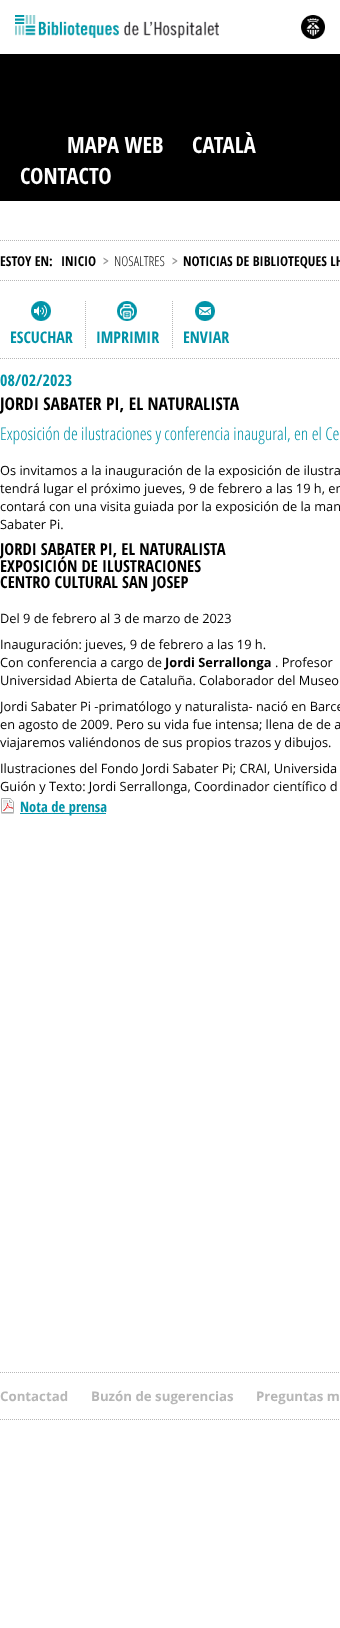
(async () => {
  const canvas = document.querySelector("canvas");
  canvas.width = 340;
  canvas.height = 1628;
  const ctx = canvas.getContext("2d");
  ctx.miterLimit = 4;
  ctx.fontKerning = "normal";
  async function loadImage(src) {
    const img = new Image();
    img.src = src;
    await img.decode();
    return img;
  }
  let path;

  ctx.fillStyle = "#ffffff";
  ctx.fillRect(0, 0, 340, 1628);
  ctx.fillStyle = "#000000";
  ctx.fillRect(0, 54, 340, 147);
  ctx.drawImage(await loadImage("img/1.png"), 15, 15, 204, 23);
  ctx.drawImage(await loadImage("img/2.png"), 301, 15, 24, 24);
  path = new Path2D("M0 240.5H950");
  ctx.strokeStyle = "#b7b7b7";
  ctx.setLineDash([1, 1]);
  ctx.stroke(path);
  path = new Path2D("M0 280.5H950");
  ctx.stroke(path);
  ctx.drawImage(await loadImage("img/3.png"), 103, 257, 6, 8);
  ctx.drawImage(await loadImage("img/3.png"), 172, 257, 6, 8);
  path = new Path2D("M0 358.5H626");
  ctx.stroke(path);
  path = new Path2D("M85.5 301V348");
  ctx.stroke(path);
  ctx.drawImage(await loadImage("img/4.png"), 31, 301, 20, 20);
  path = new Path2D("M172.5 301V348");
  ctx.stroke(path);
  ctx.drawImage(await loadImage("img/5.png"), 117, 301, 20, 20);
  ctx.drawImage(await loadImage("img/6.png"), 195, 301, 20, 20);
  ctx.drawImage(await loadImage("img/7.png"), 1, 798, 13, 16);
  ctx.fillStyle = "#0094ab";
  ctx.fillRect(20, 813, 86, 1);
  path = new Path2D("M0 1372.5H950");
  ctx.stroke(path);
  path = new Path2D("M0 1419.5H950");
  ctx.stroke(path);
  ctx.font = "bold 22.5px Open Sans Condensed";
  ctx.fillStyle = "#ffffff";
  for (const [text, x, y] of [
    ["MAPA WEB", 67, 153],
    ["CATALÀ", 192, 153],
    ["CONTACTO", 20, 184],
  ]) {
    ctx.fillText(text, x, y);
  }
  ctx.font = "bold 13.6px Open Sans Condensed";
  ctx.fillStyle = "#000000";
  ctx.fillText("ESTOY EN:", 0, 266);
  ctx.fillText("INICIO", 61, 266);
  ctx.font = "300 13.6px Open Sans Condensed";
  ctx.fillText("NOSALTRES", 114, 266);
  ctx.font = "bold 13.6px Open Sans Condensed";
  ctx.fillText("NOTICIAS DE BIBLIOTEQUES LH", 183, 266);
  ctx.font = "bold 16px Open Sans Condensed";
  ctx.fillStyle = "#0092a7";
  for (const [text, x, y] of [
    ["ESCUCHAR", 10, 343],
    ["IMPRIMIR", 96, 343],
    ["ENVIAR", 183, 343],
    ["08/02/2023", 0, 386],
  ]) {
    ctx.fillText(text, x, y);
  }
  ctx.font = "bold 17.6px Open Sans Condensed";
  ctx.fillStyle = "#000000";
  ctx.fillText("JORDI SABATER PI, EL NATURALISTA", 0, 410);
  ctx.font = "300 17.6px Open Sans Condensed";
  ctx.fillStyle = "#0092a7";
  ctx.fillText("Exposición de ilustraciones y conferencia inaugural, en el Ce", 0, 440);
  ctx.font = "12.8px Open Sans";
  ctx.fillStyle = "#000000";
  for (const [text, x, y] of [
    ["Os invitamos a la inauguración de la exposición de ilustra", 0, 475],
    ["tendrá lugar el próximo jueves, 9 de febrero a las 19 h, en", 0, 493],
    ["contará con una visita guiada por la exposición de la man", 0, 511],
    ["Sabater Pi.", 0, 529],
  ]) {
    ctx.fillText(text, x, y);
  }
  ctx.font = "bold 16.6px Open Sans Condensed";
  for (const [text, x, y] of [
    ["JORDI SABATER PI, EL NATURALISTA", 0, 555],
    ["EXPOSICIÓN DE ILUSTRACIONES", 0, 572],
    ["CENTRO CULTURAL SAN JOSEP", 0, 588],
  ]) {
    ctx.fillText(text, x, y);
  }
  ctx.font = "12.8px Open Sans";
  for (const [text, x, y] of [
    ["Del 9 de febrero al 3 de marzo de 2023", 0, 623],
    ["Inauguración: jueves, 9 de febrero a las 19 h.", 0, 649],
    ["Con conferencia a cargo de", 0, 667],
  ]) {
    ctx.fillText(text, x, y);
  }
  ctx.font = "bold 12.8px Open Sans";
  ctx.fillText("Jordi Serrallonga", 165, 667);
  ctx.font = "12.8px Open Sans";
  for (const [text, x, y] of [
    [". Profesor", 275, 667],
    ["Universidad Abierta de Cataluña. Colaborador del Museo", 0, 685],
    ["Jordi Sabater Pi -primatólogo y naturalista- nació en Barce", 0, 711],
    ["en agosto de 2009. Pero su vida fue intensa; llena de de a", 0, 729],
    ["viajaremos valiéndonos de sus propios trazos y dibujos.", 0, 747],
    ["Ilustraciones del Fondo Jordi Sabater Pi; CRAI, Universida", 0, 773],
    ["Guión y Texto: Jordi Serrallonga, Coordinador científico d", 0, 791],
  ]) {
    ctx.fillText(text, x, y);
  }
  ctx.font = "bold 14.5px Open Sans Condensed";
  ctx.fillStyle = "#0092a7";
  ctx.fillText("Nota de prensa", 20, 812);
  ctx.font = "bold 13.25px Open Sans";
  ctx.fillStyle = "#b7b7b7";
  for (const [text, x, y] of [
    ["Contactad", 0, 1401],
    ["Buzón de sugerencias", 91, 1401],
    ["Preguntas m", 256, 1401],
  ]) {
    ctx.fillText(text, x, y);
  }
})();
